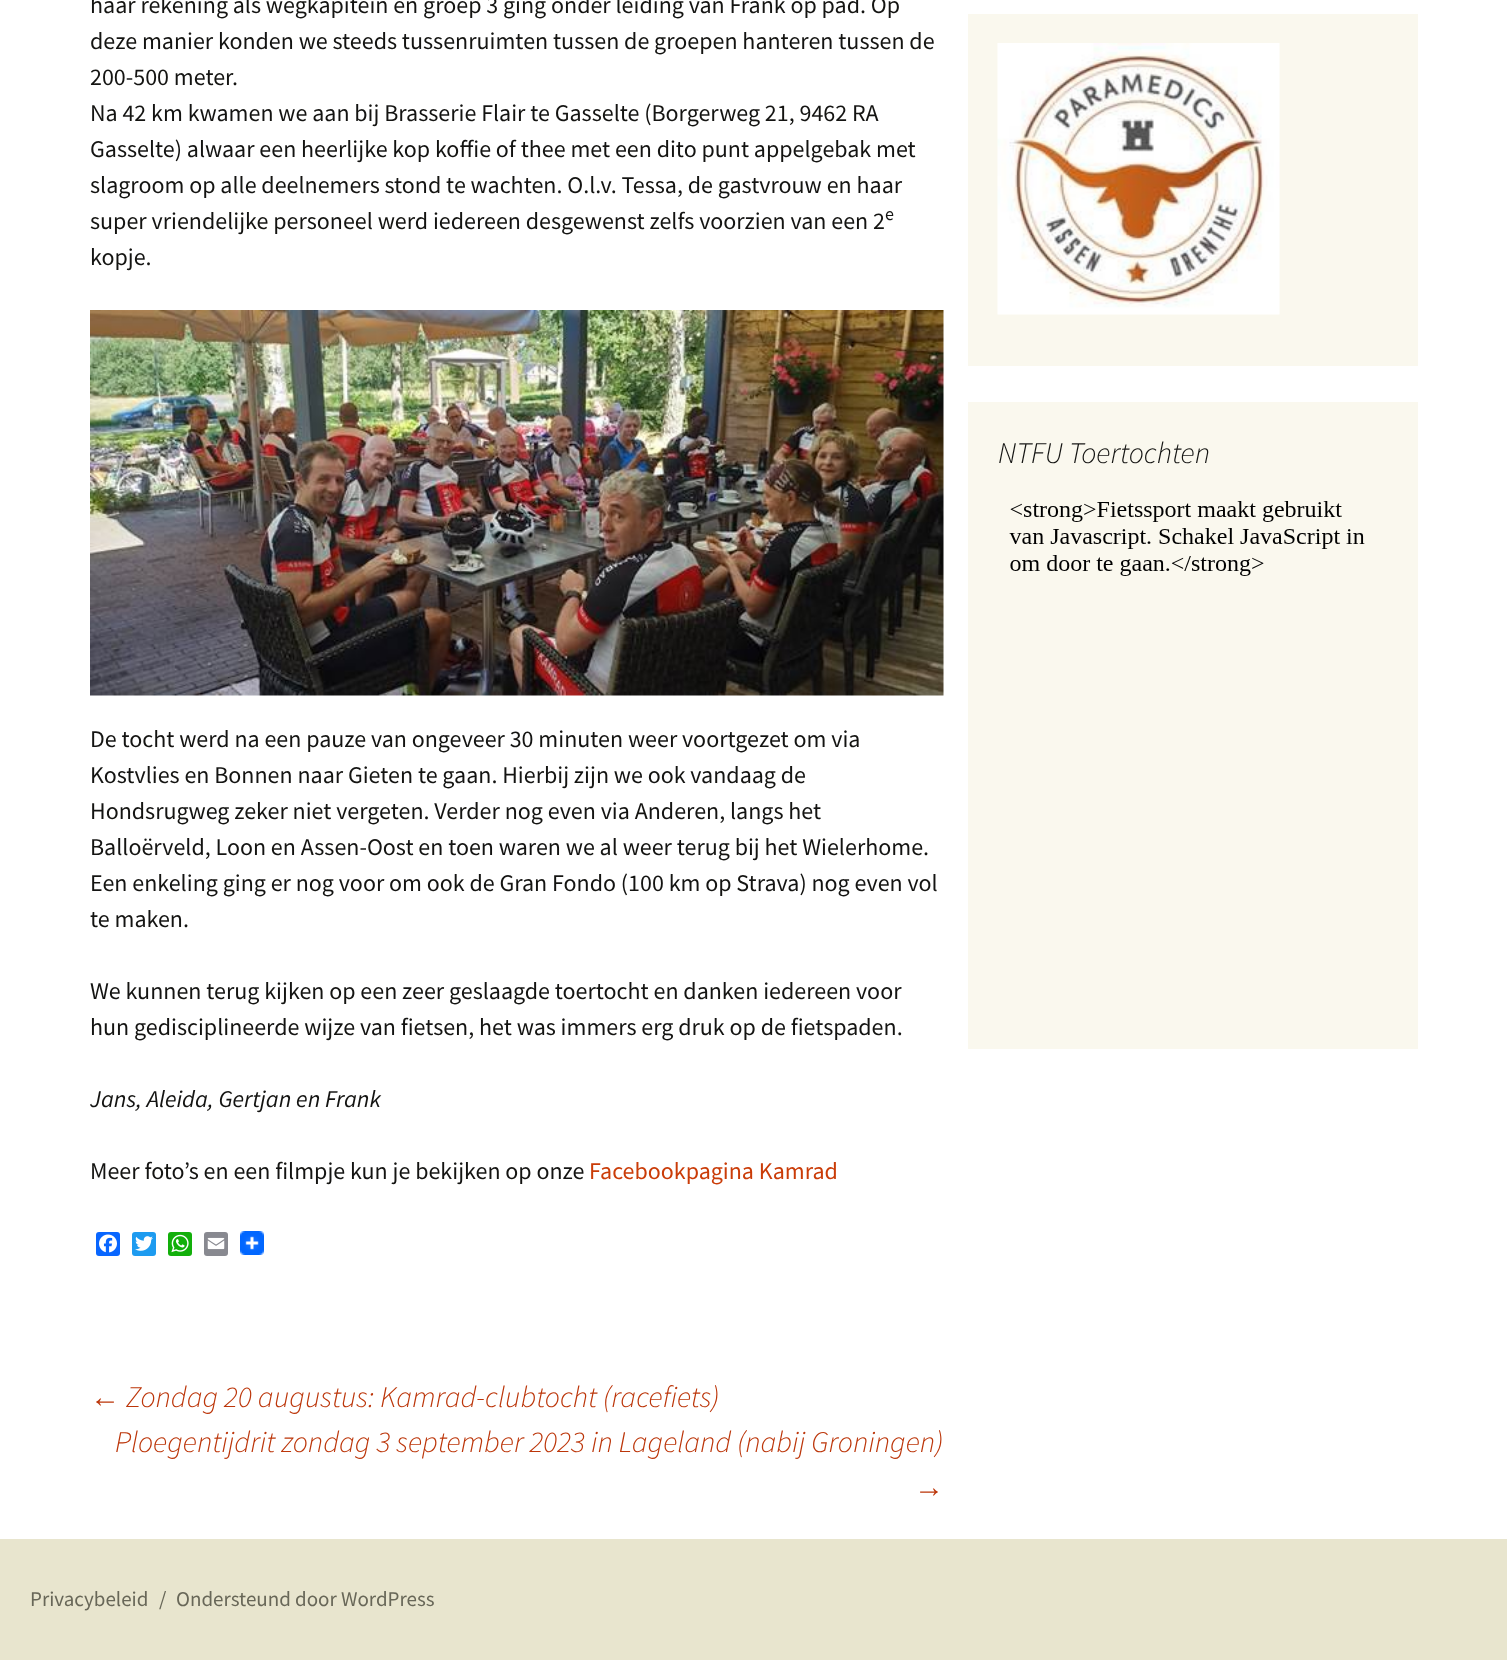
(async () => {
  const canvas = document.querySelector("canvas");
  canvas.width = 1507;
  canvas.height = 1660;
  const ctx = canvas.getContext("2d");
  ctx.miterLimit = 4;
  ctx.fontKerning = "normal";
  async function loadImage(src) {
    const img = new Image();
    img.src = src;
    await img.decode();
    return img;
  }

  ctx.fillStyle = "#ffffff";
  ctx.fillRect(0, 0, 1507, 1660);
  ctx.drawImage(await loadImage("img/1.png"), 90, 310, 854, 386);
  ctx.fillStyle = "#0866ff";
  ctx.beginPath();
  ctx.roundRect(96, 1232, 24, 24, 3);
  ctx.fill();
  ctx.drawImage(await loadImage("img/2.png"), 99, 1234, 18, 19);
  ctx.fillStyle = "#1d9bf0";
  ctx.beginPath();
  ctx.roundRect(132, 1232, 24, 24, 3);
  ctx.fill();
  ctx.drawImage(await loadImage("img/3.png"), 135, 1236, 18, 15);
  ctx.fillStyle = "#12af0a";
  ctx.beginPath();
  ctx.roundRect(168, 1232, 24, 24, 3);
  ctx.fill();
  ctx.drawImage(await loadImage("img/4.png"), 171, 1234, 18, 19);
  ctx.fillStyle = "#888990";
  ctx.beginPath();
  ctx.roundRect(204, 1232, 24, 24, 3);
  ctx.fill();
  ctx.drawImage(await loadImage("img/5.png"), 207, 1237, 18, 13);
  ctx.drawImage(await loadImage("img/6.png"), 240, 1231, 24, 24);
  ctx.fillStyle = "#faf8ee";
  ctx.fillRect(968, 14, 450, 352);
  ctx.drawImage(await loadImage("img/7.png"), 997, 43, 283, 272);
  ctx.fillRect(968, 402, 450, 647);
  ctx.drawImage(await loadImage("img/8.png"), 1009, 501, 356, 75);
  ctx.fillStyle = "#e8e5ce";
  ctx.fillRect(0, 1539, 1507, 121);
  ctx.font = "24px Source Sans Pro";
  ctx.fillStyle = "#141412";
  for (const [text, x, y] of [
    ["haar rekening als wegkapitein en groep 3 ging onder leiding van Frank op pad. Op", 90, 13],
    ["deze manier konden we steeds tussenruimten tussen de groepen hanteren tussen de", 90, 49],
    ["200-500 meter.", 90, 85],
    ["Na 42 km kwamen we aan bij Brasserie Flair te Gasselte (Borgerweg 21, 9462 RA", 90, 121],
    ["Gasselte) alwaar een heerlijke kop koffie of thee met een dito punt appelgebak met", 90, 157],
    ["slagroom op alle deelnemers stond te wachten. O.l.v. Tessa, de gastvrouw en haar", 90, 193],
    ["super vriendelijke personeel werd iedereen desgewenst zelfs voorzien van een 2", 90, 229],
  ]) {
    ctx.fillText(text, x, y);
  }
  ctx.font = "18px Source Sans Pro";
  ctx.fillText("e", 885, 220);
  ctx.font = "24px Source Sans Pro";
  for (const [text, x, y] of [
    ["kopje.", 90, 265],
    ["De tocht werd na een pauze van ongeveer 30 minuten weer voortgezet om via", 90, 747],
    ["Kostvlies en Bonnen naar Gieten te gaan. Hierbij zijn we ook vandaag de", 90, 783],
    ["Hondsrugweg zeker niet vergeten. Verder nog even via Anderen, langs het", 90, 819],
    ["Balloërveld, Loon en Assen-Oost en toen waren we al weer terug bij het Wielerhome.", 90, 855],
    ["Een enkeling ging er nog voor om ook de Gran Fondo (100 km op Strava) nog even vol", 90, 891],
    ["te maken.", 90, 927],
    ["We kunnen terug kijken op een zeer geslaagde toertocht en danken iedereen voor", 90, 999],
    ["hun gedisciplineerde wijze van fietsen, het was immers erg druk op de fietspaden.", 90, 1035],
  ]) {
    ctx.fillText(text, x, y);
  }
  ctx.font = "italic 24px Source Sans Pro";
  ctx.fillText("Jans, Aleida, Gertjan en Frank", 90, 1107);
  ctx.font = "24px Source Sans Pro";
  ctx.fillText("Meer foto’s en een filmpje kun je bekijken op onze", 90, 1179);
  ctx.fillStyle = "#ca3c08";
  ctx.fillText("Facebookpagina Kamrad", 589, 1179);
  ctx.font = "italic 30px Liberation Sans";
  ctx.fillStyle = "#bc360a";
  ctx.fillText("←", 90, 1407);
  ctx.font = "italic 300 30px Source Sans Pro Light";
  ctx.fillText("Zondag 20 augustus: Kamrad-clubtocht (racefiets)", 126, 1407);
  ctx.fillText("Ploegentijdrit zondag 3 september 2023 in Lageland (nabij Groningen)", 115, 1452);
  ctx.font = "italic 30px Liberation Sans";
  ctx.fillText("→", 914, 1497);
  ctx.font = "italic 300 30px Source Sans Pro Light";
  ctx.fillStyle = "#141412";
  ctx.fillText("NTFU Toertochten", 998, 463);
  ctx.font = "21px Source Sans Pro";
  ctx.fillStyle = "#686758";
  for (const [text, x, y] of [
    ["Privacybeleid", 30, 1606],
    ["/", 159, 1606],
    ["Ondersteund door WordPress", 176, 1606],
  ]) {
    ctx.fillText(text, x, y);
  }
})();
